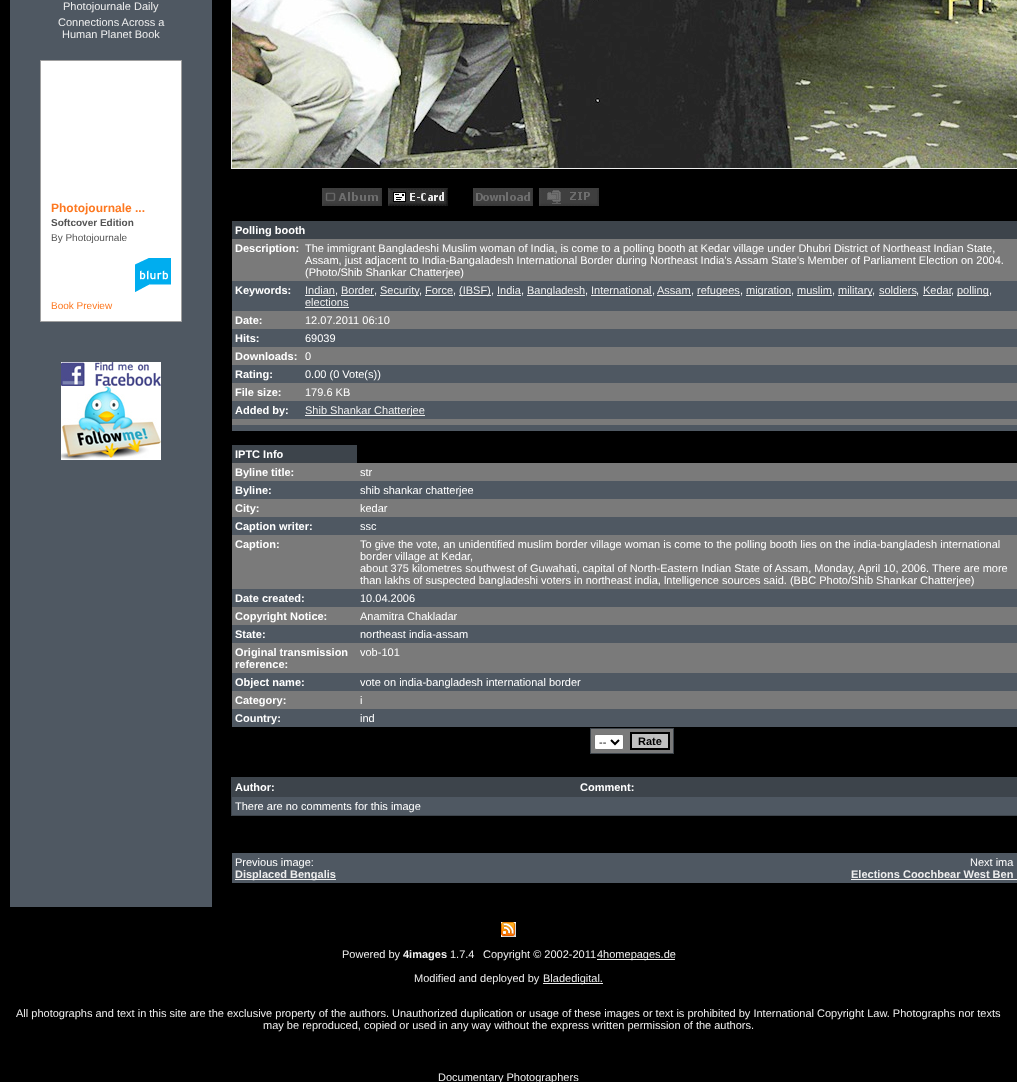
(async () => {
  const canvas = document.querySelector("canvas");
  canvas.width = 1017;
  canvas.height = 1082;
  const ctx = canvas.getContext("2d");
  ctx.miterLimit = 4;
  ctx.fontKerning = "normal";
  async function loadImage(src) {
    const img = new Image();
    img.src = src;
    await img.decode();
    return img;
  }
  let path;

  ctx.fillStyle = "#000000";
  ctx.fillRect(0, 0, 1017, 1082);
  ctx.fillStyle = "#4f5862";
  ctx.fillRect(10, 0, 202, 907);
  ctx.fillStyle = "#ffffff";
  ctx.beginPath();
  ctx.rect(40.5, 60.5, 141, 261);
  ctx.fill();
  ctx.strokeStyle = "#a0a0a0";
  ctx.stroke();
  ctx.drawImage(await loadImage("img/1.png"), 135, 258, 36, 34);
  ctx.drawImage(await loadImage("img/2.png"), 61, 362, 100, 24);
  ctx.drawImage(await loadImage("img/3.png"), 61, 386, 100, 74);
  ctx.strokeStyle = "#efefef";
  ctx.strokeRect(231.5, -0.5, 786, 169);
  ctx.drawImage(await loadImage("img/4.png"), 232, 0, 785, 168);
  ctx.drawImage(await loadImage("img/5.png"), 322, 188, 60, 18);
  ctx.drawImage(await loadImage("img/6.png"), 388, 188, 60, 18);
  ctx.drawImage(await loadImage("img/7.png"), 473, 188, 60, 18);
  ctx.drawImage(await loadImage("img/8.png"), 539, 188, 60, 18);
  for (const [x, y, w, h, color] of [
    [232, 221, 785, 18, "#3d444b"],
    [232, 239, 785, 42, "#7a7a7a"],
    [232, 281, 785, 30, "#4f5862"],
    [305, 295, 30, 1, "#eeeeee"],
    [341, 295, 33, 1, "#eeeeee"],
    [380, 295, 39, 1, "#eeeeee"],
    [425, 295, 28, 1, "#eeeeee"],
    [459, 295, 32, 1, "#eeeeee"],
    [497, 295, 24, 1, "#eeeeee"],
    [527, 295, 58, 1, "#eeeeee"],
    [591, 295, 61, 1, "#eeeeee"],
    [657, 295, 34, 1, "#eeeeee"],
    [697, 295, 43, 1, "#eeeeee"],
    [746, 295, 45, 1, "#eeeeee"],
    [797, 295, 35, 1, "#eeeeee"],
    [838, 295, 34, 1, "#eeeeee"],
    [879, 295, 37, 1, "#eeeeee"],
    [923, 295, 28, 1, "#eeeeee"],
    [957, 295, 32, 1, "#eeeeee"],
    [305, 307, 44, 1, "#eeeeee"],
    [232, 311, 785, 18, "#7a7a7a"],
    [232, 329, 785, 18, "#4f5862"],
    [232, 347, 785, 18, "#7a7a7a"],
    [232, 365, 785, 18, "#4f5862"],
    [232, 383, 785, 18, "#7a7a7a"],
    [232, 401, 785, 18, "#4f5862"],
    [305, 415, 120, 1, "#eeeeee"],
    [232, 419, 785, 6, "#7a7a7a"],
    [232, 425, 785, 6, "#4f5862"],
    [232, 445, 125, 18, "#3d444b"],
    [232, 463, 785, 18, "#7a7a7a"],
    [232, 481, 785, 18, "#4f5862"],
    [232, 499, 785, 18, "#7a7a7a"],
    [232, 517, 785, 18, "#4f5862"],
    [232, 535, 785, 54, "#7a7a7a"],
    [232, 589, 785, 18, "#4f5862"],
    [232, 607, 785, 18, "#7a7a7a"],
    [232, 625, 785, 18, "#4f5862"],
    [232, 643, 785, 30, "#7a7a7a"],
    [232, 673, 785, 18, "#4f5862"],
    [232, 691, 785, 18, "#7a7a7a"],
    [232, 709, 785, 18, "#4f5862"],
    [590, 728, 84, 26, "#3d444b"],
    [591, 729, 82, 24, "#7a7a7a"],
  ]) {
    ctx.fillStyle = color;
    ctx.fillRect(x, y, w, h);
  }
  ctx.fillStyle = "#ffffff";
  ctx.beginPath();
  ctx.roundRect(594.5, 734.5, 29, 15, 1.5);
  ctx.fill();
  ctx.strokeStyle = "#767676";
  ctx.stroke();
  path = new Path2D("M611 740L615 744L619 740");
  ctx.strokeStyle = "#000000";
  ctx.lineWidth = 2;
  ctx.stroke(path);
  ctx.fillStyle = "#c0c0c0";
  ctx.beginPath();
  ctx.rect(631, 733, 38, 16);
  ctx.fill();
  ctx.stroke();
  for (const [x, y, w, h, color] of [
    [231, 777, 786, 39, "#3d444b"],
    [232, 797, 785, 18, "#4f5862"],
    [232, 853, 785, 30, "#4f5862"],
    [235, 879, 101, 1, "#eeeeee"],
    [851, 879, 166, 1, "#eeeeee"],
  ]) {
    ctx.fillStyle = color;
    ctx.fillRect(x, y, w, h);
  }
  ctx.drawImage(await loadImage("img/9.png"), 501, 922, 15, 15);
  ctx.fillRect(597, 959, 78, 1);
  ctx.fillRect(543, 983, 60, 1);
  ctx.font = "11px Liberation Sans";
  for (const [text, x, y] of [
    ["Photojournale Daily", 63, 10],
    ["Connections Across a", 58, 26],
    ["Human Planet Book", 62, 38],
  ]) {
    ctx.fillText(text, x, y);
  }
  ctx.font = "bold 12px Liberation Sans";
  ctx.fillStyle = "#fd7820";
  ctx.fillText("Photojournale ...", 51, 212);
  ctx.font = "bold 10px Liberation Sans";
  ctx.fillStyle = "#545454";
  ctx.fillText("Softcover Edition", 51, 226);
  ctx.font = "10px Liberation Sans";
  ctx.fillText("By Photojournale", 51, 241);
  ctx.fillStyle = "#fd7820";
  ctx.fillText("Book Preview", 51, 309);
  ctx.font = "bold 11px Liberation Sans";
  ctx.fillStyle = "#ffffff";
  ctx.fillText("Polling booth", 235, 234);
  ctx.fillText("Description:", 235, 252);
  ctx.font = "11px Liberation Sans";
  for (const [text, x, y] of [
    ["The immigrant Bangladeshi Muslim woman of India, is come to a polling booth at Kedar village under Dhubri District of Northeast Indian State,", 305, 252],
    ["Assam, just adjacent to India-Bangaladesh International Border during Northeast India's Assam State's Member of Parliament Election on 2004.", 305, 264],
    ["(Photo/Shib Shankar Chatterjee)", 305, 276],
  ]) {
    ctx.fillText(text, x, y);
  }
  ctx.font = "bold 11px Liberation Sans";
  ctx.fillText("Keywords:", 235, 294);
  ctx.font = "11px Liberation Sans";
  ctx.fillStyle = "#eeeeee";
  ctx.fillText("Indian", 305, 294);
  ctx.fillStyle = "#ffffff";
  ctx.fillText(",", 335, 294);
  ctx.fillStyle = "#eeeeee";
  for (const [text, x, y] of [
    ["Border", 341, 294],
    ["Security", 380, 294],
    ["Force", 425, 294],
    ["(IBSF)", 459, 294],
    ["India", 497, 294],
    ["Bangladesh", 527, 294],
    ["International", 591, 294],
    ["Assam", 657, 294],
    ["refugees", 697, 294],
    ["migration", 746, 294],
    ["muslim", 797, 294],
    ["military", 838, 294],
    ["soldiers", 879, 294],
    ["Kedar", 923, 294],
    ["polling", 957, 294],
  ]) {
    ctx.fillText(text, x, y);
  }
  ctx.fillStyle = "#ffffff";
  for (const [text, x, y] of [
    [",", 374, 294],
    [",", 419, 294],
    [",", 453, 294],
    [",", 491, 294],
    [",", 521, 294],
    [",", 585, 294],
    [",", 652, 294],
    [",", 691, 294],
    [",", 740, 294],
    [",", 791, 294],
    [",", 832, 294],
    [",", 872, 294],
    [",", 916, 294],
    [",", 951, 294],
    [",", 989, 294],
  ]) {
    ctx.fillText(text, x, y);
  }
  ctx.fillStyle = "#eeeeee";
  ctx.fillText("elections", 305, 306);
  ctx.font = "bold 11px Liberation Sans";
  ctx.fillStyle = "#ffffff";
  ctx.fillText("Date:", 235, 324);
  ctx.font = "11px Liberation Sans";
  ctx.fillText("12.07.2011 06:10", 305, 324);
  ctx.font = "bold 11px Liberation Sans";
  ctx.fillText("Hits:", 235, 342);
  ctx.font = "11px Liberation Sans";
  ctx.fillText("69039", 305, 342);
  ctx.font = "bold 11px Liberation Sans";
  ctx.fillText("Downloads:", 235, 360);
  ctx.font = "11px Liberation Sans";
  ctx.fillText("0", 305, 360);
  ctx.font = "bold 11px Liberation Sans";
  ctx.fillText("Rating:", 235, 378);
  ctx.font = "11px Liberation Sans";
  ctx.fillText("0.00 (0 Vote(s))", 305, 378);
  ctx.font = "bold 11px Liberation Sans";
  ctx.fillText("File size:", 235, 396);
  ctx.font = "11px Liberation Sans";
  ctx.fillText("179.6 KB", 305, 396);
  ctx.font = "bold 11px Liberation Sans";
  ctx.fillText("Added by:", 235, 414);
  ctx.font = "11px Liberation Sans";
  ctx.fillStyle = "#eeeeee";
  ctx.fillText("Shib Shankar Chatterjee", 305, 414);
  ctx.font = "bold 11px Liberation Sans";
  ctx.fillStyle = "#ffffff";
  ctx.fillText("IPTC Info", 235, 458);
  ctx.fillText("Byline title:", 235, 476);
  ctx.font = "11px Liberation Sans";
  ctx.fillText("str", 360, 476);
  ctx.font = "bold 11px Liberation Sans";
  ctx.fillText("Byline:", 235, 494);
  ctx.font = "11px Liberation Sans";
  ctx.fillText("shib shankar chatterjee", 360, 494);
  ctx.font = "bold 11px Liberation Sans";
  ctx.fillText("City:", 235, 512);
  ctx.font = "11px Liberation Sans";
  ctx.fillText("kedar", 360, 512);
  ctx.font = "bold 11px Liberation Sans";
  ctx.fillText("Caption writer:", 235, 530);
  ctx.font = "11px Liberation Sans";
  ctx.fillText("ssc", 360, 530);
  ctx.font = "bold 11px Liberation Sans";
  ctx.fillText("Caption:", 235, 548);
  ctx.font = "11px Liberation Sans";
  for (const [text, x, y] of [
    ["To give the vote, an unidentified muslim border village woman is come to the polling booth lies on the india-bangladesh international", 360, 548],
    ["border village at Kedar,", 360, 560],
    ["about 375 kilometres southwest of Guwahati, capital of North-Eastern Indian State of Assam, Monday, April 10, 2006. There are more", 360, 572],
    ["than lakhs of suspected bangladeshi voters in northeast india, lntelligence sources said. (BBC Photo/Shib Shankar Chatterjee)", 360, 584],
  ]) {
    ctx.fillText(text, x, y);
  }
  ctx.font = "bold 11px Liberation Sans";
  ctx.fillText("Date created:", 235, 602);
  ctx.font = "11px Liberation Sans";
  ctx.fillText("10.04.2006", 360, 602);
  ctx.font = "bold 11px Liberation Sans";
  ctx.fillText("Copyright Notice:", 235, 620);
  ctx.font = "11px Liberation Sans";
  ctx.fillText("Anamitra Chakladar", 360, 620);
  ctx.font = "bold 11px Liberation Sans";
  ctx.fillText("State:", 235, 638);
  ctx.font = "11px Liberation Sans";
  ctx.fillText("northeast india-assam", 360, 638);
  ctx.font = "bold 11px Liberation Sans";
  ctx.fillText("Original transmission", 235, 656);
  ctx.fillText("reference:", 235, 668);
  ctx.font = "11px Liberation Sans";
  ctx.fillText("vob-101", 360, 656);
  ctx.font = "bold 11px Liberation Sans";
  ctx.fillText("Object name:", 235, 686);
  ctx.font = "11px Liberation Sans";
  ctx.fillText("vote on india-bangladesh international border", 360, 686);
  ctx.font = "bold 11px Liberation Sans";
  ctx.fillText("Category:", 235, 704);
  ctx.font = "11px Liberation Sans";
  ctx.fillText("i", 360, 704);
  ctx.font = "bold 11px Liberation Sans";
  ctx.fillText("Country:", 235, 722);
  ctx.font = "11px Liberation Sans";
  ctx.fillText("ind", 360, 722);
  ctx.fillStyle = "#000000";
  ctx.fillText("--", 599, 746);
  ctx.font = "bold 11px Liberation Sans";
  ctx.fillText("Rate", 638, 745);
  ctx.fillStyle = "#ffffff";
  ctx.fillText("Author:", 235, 791);
  ctx.fillText("Comment:", 580, 791);
  ctx.font = "11px Liberation Sans";
  ctx.fillText("There are no comments for this image", 235, 810);
  ctx.fillText("Previous image:", 235, 866);
  ctx.font = "bold 11px Liberation Sans";
  ctx.fillStyle = "#eeeeee";
  ctx.fillText("Displaced Bengalis", 235, 878);
  ctx.font = "11px Liberation Sans";
  ctx.fillStyle = "#ffffff";
  ctx.fillText("Next ima", 970, 866);
  ctx.font = "bold 11px Liberation Sans";
  ctx.fillStyle = "#eeeeee";
  ctx.fillText("Elections Coochbear West Ben", 851, 878);
  ctx.font = "11px Liberation Sans";
  ctx.fillText("Powered by", 342, 958);
  ctx.font = "bold 11px Liberation Sans";
  ctx.fillText("4images", 403, 958);
  ctx.font = "11px Liberation Sans";
  for (const [text, x, y] of [
    ["1.7.4", 450, 958],
    ["Copyright © 2002-2011", 483, 958],
    ["4homepages.de", 597, 958],
    ["Modified and deployed by", 414, 982],
    ["Bladedigital.", 543, 982],
    ["All photographs and text in this site are the exclusive property of the authors. Unauthorized duplication or usage of these images or text is prohibited by International Copyright Law. Photographs nor texts", 16, 1017],
    ["may be reproduced, copied or used in any way without the express written permission of the authors.", 263, 1029],
    ["Documentary Photographers", 438, 1081],
  ]) {
    ctx.fillText(text, x, y);
  }
})();
